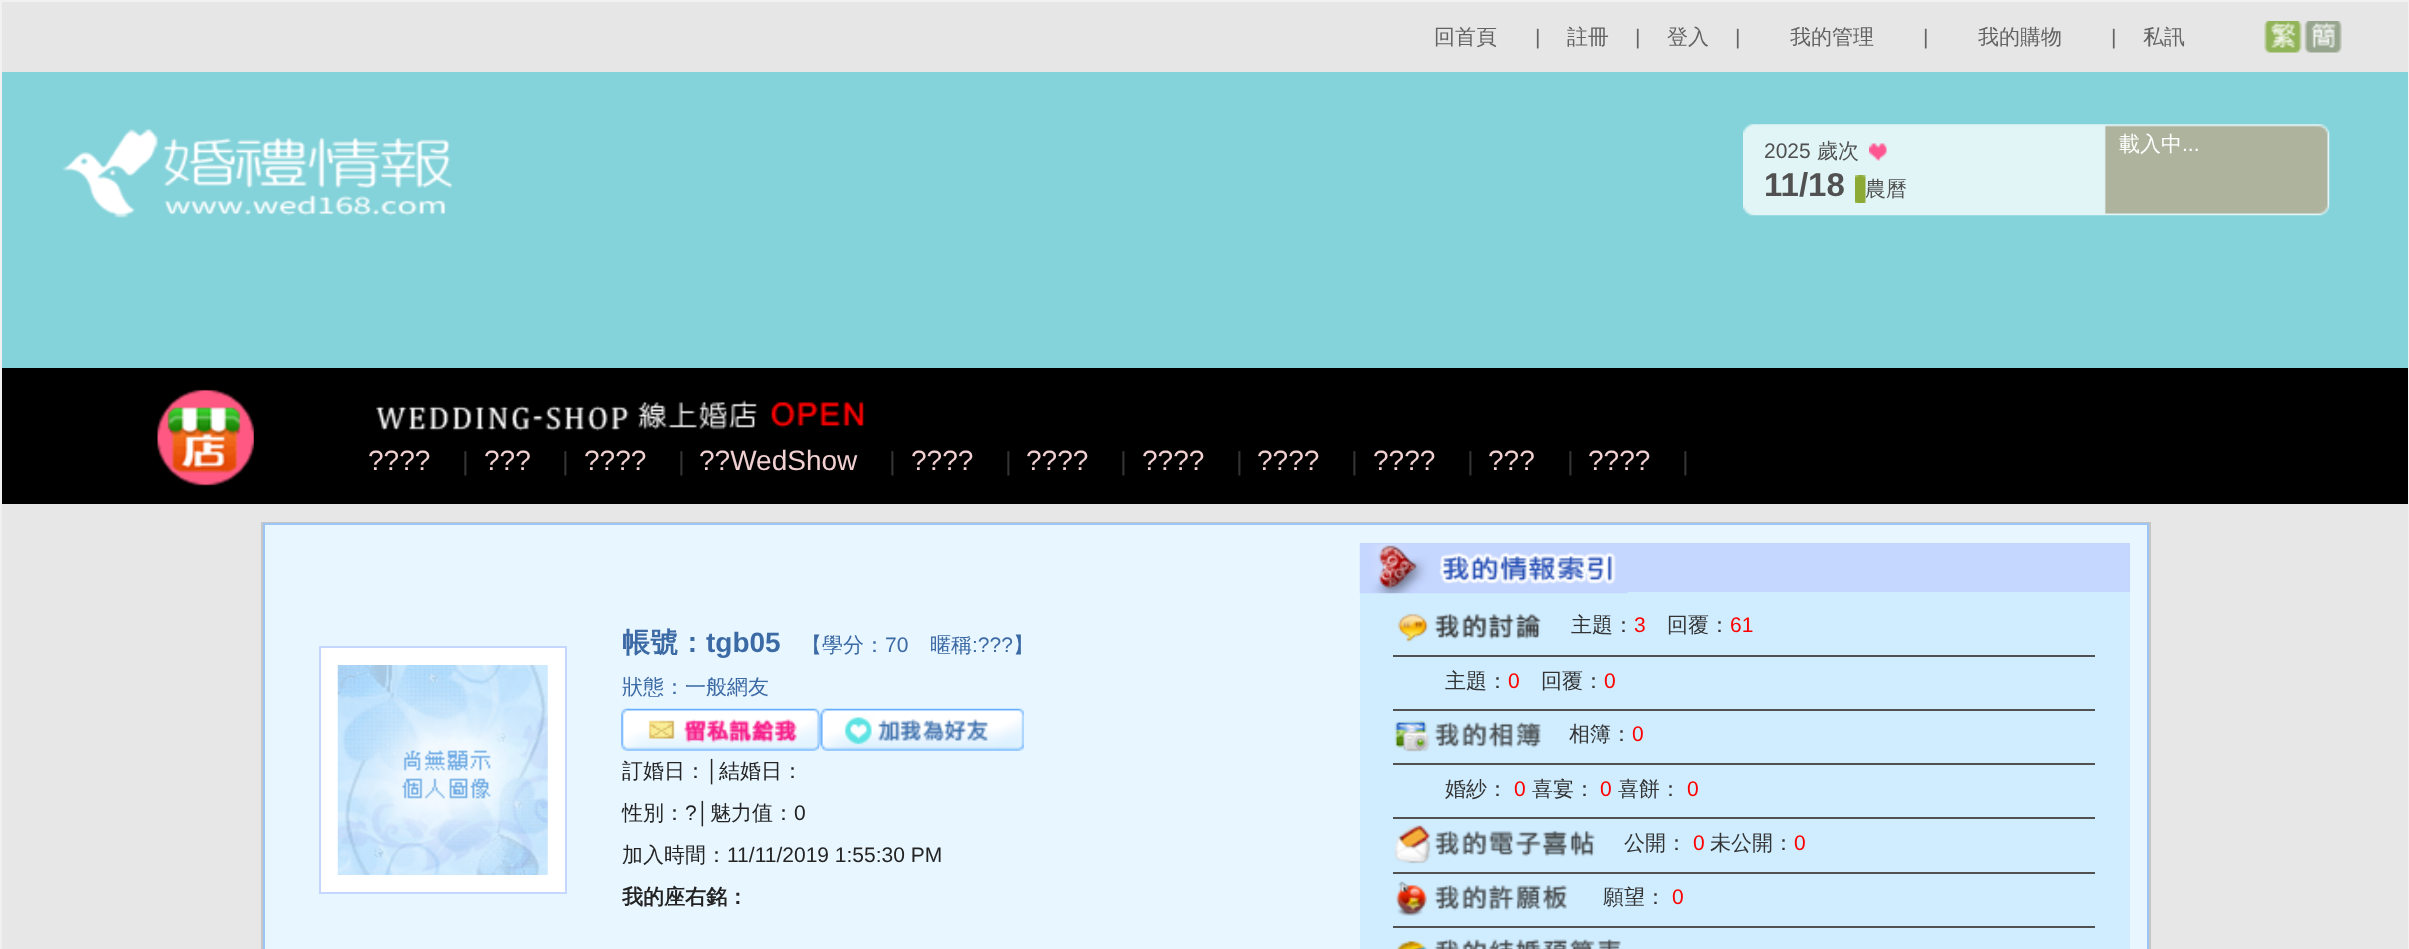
(async () => {
  const canvas = document.querySelector("canvas");
  canvas.width = 2409;
  canvas.height = 949;
  const ctx = canvas.getContext("2d");
  ctx.miterLimit = 4;
  ctx.fontKerning = "normal";
  async function loadImage(src) {
    const img = new Image();
    img.src = src;
    await img.decode();
    return img;
  }

  ctx.fillStyle = "#ffffff";
  ctx.fillRect(0, 0, 2409, 949);
  ctx.strokeStyle = "#f1f1f1";
  ctx.lineWidth = 2;
  ctx.strokeRect(1, 1, 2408, 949);
  ctx.fillStyle = "#e6e6e6";
  ctx.fillRect(2, 2, 2406, 70);
  ctx.drawImage(await loadImage("img/1.png"), 2264, 21, 38, 32);
  ctx.drawImage(await loadImage("img/2.png"), 2304, 21, 38, 32);
  ctx.fillStyle = "#84d3da";
  ctx.fillRect(2, 72, 2406, 296);
  ctx.drawImage(await loadImage("img/3.png"), 62, 129, 390, 89);
  ctx.drawImage(await loadImage("img/4.png"), 1743, 124, 587, 92);
  ctx.drawImage(await loadImage("img/5.png"), 1869, 143, 18, 18);
  ctx.drawImage(await loadImage("img/6.png"), 1855, 175, 11, 28);
  ctx.fillStyle = "#000000";
  ctx.fillRect(2, 368, 2406, 136);
  ctx.drawImage(await loadImage("img/7.png"), 157, 389, 97, 97);
  ctx.drawImage(await loadImage("img/8.png"), 376, 400, 489, 31);
  ctx.fillStyle = "#e7e7e7";
  ctx.fillRect(2, 504, 2406, 445);
  ctx.strokeStyle = "#c6c6c6";
  ctx.strokeRect(262, 523, 1888, 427);
  ctx.fillStyle = "#e8f6ff";
  ctx.beginPath();
  ctx.rect(264, 524, 1884, 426);
  ctx.fill();
  ctx.strokeStyle = "#9cc5f3";
  ctx.stroke();
  ctx.fillStyle = "#ffffff";
  ctx.beginPath();
  ctx.rect(320, 647, 246, 246);
  ctx.fill();
  ctx.strokeStyle = "#c5d6ff";
  ctx.stroke();
  ctx.drawImage(await loadImage("img/9.png"), 337, 665, 211, 210);
  ctx.drawImage(await loadImage("img/10.png"), 621, 708, 198, 43);
  ctx.drawImage(await loadImage("img/11.png"), 819, 708, 205, 43);
  ctx.fillStyle = "#c5d6ff";
  ctx.fillRect(1360, 543, 770, 49);
  ctx.fillStyle = "#cfedff";
  ctx.fillRect(1360, 592, 770, 357);
  ctx.drawImage(await loadImage("img/12.png"), 1359, 544, 269, 50);
  ctx.fillStyle = "#515151";
  ctx.fillRect(1393, 655, 702, 2);
  ctx.drawImage(await loadImage("img/13.png"), 1397, 613, 144, 30);
  ctx.fillRect(1393, 709, 702, 2);
  ctx.fillRect(1393, 763, 702, 2);
  ctx.drawImage(await loadImage("img/14.png"), 1394, 720, 147, 32);
  ctx.fillRect(1393, 817, 702, 2);
  ctx.fillRect(1393, 872, 702, 2);
  ctx.drawImage(await loadImage("img/15.png"), 1394, 825, 201, 39);
  ctx.fillRect(1393, 926, 702, 2);
  ctx.drawImage(await loadImage("img/16.png"), 1396, 881, 171, 35);
  ctx.drawImage(await loadImage("img/17.png"), 1396, 939, 225, 10);
  ctx.font = "500 21px WenQuanYi Zen Hei";
  ctx.fillStyle = "#636363";
  ctx.fillText("回首頁", 1434, 44);
  ctx.font = "21px Liberation Sans";
  ctx.fillText("|", 1535, 44);
  ctx.font = "500 21px WenQuanYi Zen Hei";
  ctx.fillText("註冊", 1567, 44);
  ctx.font = "21px Liberation Sans";
  ctx.fillText("|", 1635, 44);
  ctx.font = "500 21px WenQuanYi Zen Hei";
  ctx.fillText("登入", 1667, 44);
  ctx.font = "21px Liberation Sans";
  ctx.fillText("|", 1735, 44);
  ctx.font = "500 21px WenQuanYi Zen Hei";
  ctx.fillText("我的管理", 1790, 44);
  ctx.font = "21px Liberation Sans";
  ctx.fillText("|", 1923, 44);
  ctx.font = "500 21px WenQuanYi Zen Hei";
  ctx.fillText("我的購物", 1978, 44);
  ctx.font = "21px Liberation Sans";
  ctx.fillText("|", 2111, 44);
  ctx.font = "500 21px WenQuanYi Zen Hei";
  ctx.fillText("私訊", 2143, 44);
  ctx.font = "21px Liberation Sans";
  ctx.fillStyle = "#515151";
  ctx.fillText("2025", 1764, 158);
  ctx.font = "500 21px WenQuanYi Zen Hei";
  ctx.fillText("歲次", 1817, 158);
  ctx.font = "bold 33px Liberation Sans";
  ctx.fillText("11/18", 1764, 196);
  ctx.font = "500 21px WenQuanYi Zen Hei";
  ctx.fillText("農曆", 1865, 196);
  ctx.fillStyle = "#ffffff";
  ctx.fillText("載入中", 2119, 151);
  ctx.font = "21px Liberation Sans";
  ctx.fillText("...", 2182, 151);
  ctx.font = "28px Liberation Sans";
  ctx.fillStyle = "#f0d0d1";
  ctx.fillText("????", 368, 470);
  ctx.font = "26px Liberation Sans";
  ctx.fillStyle = "#333333";
  ctx.fillText("|", 462, 470);
  ctx.font = "28px Liberation Sans";
  ctx.fillStyle = "#f0d0d1";
  ctx.fillText("???", 484, 470);
  ctx.font = "26px Liberation Sans";
  ctx.fillStyle = "#333333";
  ctx.fillText("|", 562, 470);
  ctx.font = "28px Liberation Sans";
  ctx.fillStyle = "#f0d0d1";
  ctx.fillText("????", 584, 470);
  ctx.font = "26px Liberation Sans";
  ctx.fillStyle = "#333333";
  ctx.fillText("|", 678, 470);
  ctx.font = "28px Liberation Sans";
  ctx.fillStyle = "#f0d0d1";
  ctx.fillText("??WedShow", 699, 470);
  ctx.font = "26px Liberation Sans";
  ctx.fillStyle = "#333333";
  ctx.fillText("|", 889, 470);
  ctx.font = "28px Liberation Sans";
  ctx.fillStyle = "#f0d0d1";
  ctx.fillText("????", 911, 470);
  ctx.font = "26px Liberation Sans";
  ctx.fillStyle = "#333333";
  ctx.fillText("|", 1005, 470);
  ctx.font = "28px Liberation Sans";
  ctx.fillStyle = "#f0d0d1";
  ctx.fillText("????", 1026, 470);
  ctx.font = "26px Liberation Sans";
  ctx.fillStyle = "#333333";
  ctx.fillText("|", 1120, 470);
  ctx.font = "28px Liberation Sans";
  ctx.fillStyle = "#f0d0d1";
  ctx.fillText("????", 1142, 470);
  ctx.font = "26px Liberation Sans";
  ctx.fillStyle = "#333333";
  ctx.fillText("|", 1236, 470);
  ctx.font = "28px Liberation Sans";
  ctx.fillStyle = "#f0d0d1";
  ctx.fillText("????", 1257, 470);
  ctx.font = "26px Liberation Sans";
  ctx.fillStyle = "#333333";
  ctx.fillText("|", 1351, 470);
  ctx.font = "28px Liberation Sans";
  ctx.fillStyle = "#f0d0d1";
  ctx.fillText("????", 1373, 470);
  ctx.font = "26px Liberation Sans";
  ctx.fillStyle = "#333333";
  ctx.fillText("|", 1467, 470);
  ctx.font = "28px Liberation Sans";
  ctx.fillStyle = "#f0d0d1";
  ctx.fillText("???", 1488, 470);
  ctx.font = "26px Liberation Sans";
  ctx.fillStyle = "#333333";
  ctx.fillText("|", 1567, 470);
  ctx.font = "28px Liberation Sans";
  ctx.fillStyle = "#f0d0d1";
  ctx.fillText("????", 1588, 470);
  ctx.font = "26px Liberation Sans";
  ctx.fillStyle = "#333333";
  ctx.fillText("|", 1682, 470);
  ctx.font = "bold 28px WenQuanYi Zen Hei";
  ctx.fillStyle = "#3c6aa5";
  ctx.fillText("帳號：", 622, 652);
  ctx.font = "bold 28px Liberation Sans";
  ctx.fillText("tgb05", 706, 652);
  ctx.font = "500 21px WenQuanYi Zen Hei";
  ctx.fillText("【學分：", 801, 652);
  ctx.font = "21px Liberation Sans";
  ctx.fillText("70", 885, 652);
  ctx.font = "500 21px WenQuanYi Zen Hei";
  ctx.fillText("暱稱", 930, 652);
  ctx.font = "21px Liberation Sans";
  ctx.fillText(":???", 972, 652);
  ctx.font = "500 21px WenQuanYi Zen Hei";
  ctx.fillText("】", 1013, 652);
  ctx.fillText("狀態：一般網友", 622, 694);
  ctx.fillStyle = "#242424";
  ctx.fillText("訂婚日：", 622, 778);
  ctx.font = "21px Liberation Sans";
  ctx.fillText("│", 706, 778);
  ctx.font = "500 21px WenQuanYi Zen Hei";
  ctx.fillText("結婚日：", 719, 778);
  ctx.fillText("性別：", 622, 820);
  ctx.font = "21px Liberation Sans";
  ctx.fillText("?│", 685, 820);
  ctx.font = "500 21px WenQuanYi Zen Hei";
  ctx.fillText("魅力值：", 710, 820);
  ctx.font = "21px Liberation Sans";
  ctx.fillText("0", 794, 820);
  ctx.font = "500 21px WenQuanYi Zen Hei";
  ctx.fillText("加入時間：", 622, 862);
  ctx.font = "21px Liberation Sans";
  ctx.fillText("11/11/2019 1:55:30 PM", 727, 862);
  ctx.font = "bold 21px WenQuanYi Zen Hei";
  ctx.fillText("我的座右銘：", 622, 904);
  ctx.font = "500 21px WenQuanYi Zen Hei";
  ctx.fillStyle = "#333333";
  ctx.fillText("主題：", 1571, 632);
  ctx.font = "21px Liberation Sans";
  ctx.fillStyle = "#ff0000";
  ctx.fillText("3", 1634, 632);
  ctx.font = "500 21px WenQuanYi Zen Hei";
  ctx.fillStyle = "#333333";
  ctx.fillText("回覆：", 1667, 632);
  ctx.font = "21px Liberation Sans";
  ctx.fillStyle = "#ff0000";
  ctx.fillText("61", 1730, 632);
  ctx.font = "500 21px WenQuanYi Zen Hei";
  ctx.fillStyle = "#333333";
  ctx.fillText("主題：", 1445, 688);
  ctx.font = "21px Liberation Sans";
  ctx.fillStyle = "#ff0000";
  ctx.fillText("0", 1508, 688);
  ctx.font = "500 21px WenQuanYi Zen Hei";
  ctx.fillStyle = "#333333";
  ctx.fillText("回覆：", 1541, 688);
  ctx.font = "21px Liberation Sans";
  ctx.fillStyle = "#ff0000";
  ctx.fillText("0", 1604, 688);
  ctx.font = "500 21px WenQuanYi Zen Hei";
  ctx.fillStyle = "#333333";
  ctx.fillText("相簿：", 1569, 741);
  ctx.font = "21px Liberation Sans";
  ctx.fillStyle = "#ff0000";
  ctx.fillText("0", 1632, 741);
  ctx.font = "500 21px WenQuanYi Zen Hei";
  ctx.fillStyle = "#333333";
  ctx.fillText("婚紗：", 1445, 796);
  ctx.font = "21px Liberation Sans";
  ctx.fillStyle = "#ff0000";
  ctx.fillText("0", 1514, 796);
  ctx.font = "500 21px WenQuanYi Zen Hei";
  ctx.fillStyle = "#333333";
  ctx.fillText("喜宴：", 1532, 796);
  ctx.font = "21px Liberation Sans";
  ctx.fillStyle = "#ff0000";
  ctx.fillText("0", 1600, 796);
  ctx.font = "500 21px WenQuanYi Zen Hei";
  ctx.fillStyle = "#333333";
  ctx.fillText("喜餅：", 1618, 796);
  ctx.font = "21px Liberation Sans";
  ctx.fillStyle = "#ff0000";
  ctx.fillText("0", 1687, 796);
  ctx.font = "500 21px WenQuanYi Zen Hei";
  ctx.fillStyle = "#333333";
  ctx.fillText("公開：", 1624, 850);
  ctx.font = "21px Liberation Sans";
  ctx.fillStyle = "#ff0000";
  ctx.fillText("0", 1693, 850);
  ctx.font = "500 21px WenQuanYi Zen Hei";
  ctx.fillStyle = "#333333";
  ctx.fillText("未公開：", 1710, 850);
  ctx.font = "21px Liberation Sans";
  ctx.fillStyle = "#ff0000";
  ctx.fillText("0", 1794, 850);
  ctx.font = "500 21px WenQuanYi Zen Hei";
  ctx.fillStyle = "#333333";
  ctx.fillText("願望：", 1603, 904);
  ctx.font = "21px Liberation Sans";
  ctx.fillStyle = "#ff0000";
  ctx.fillText("0", 1672, 904);
})();
